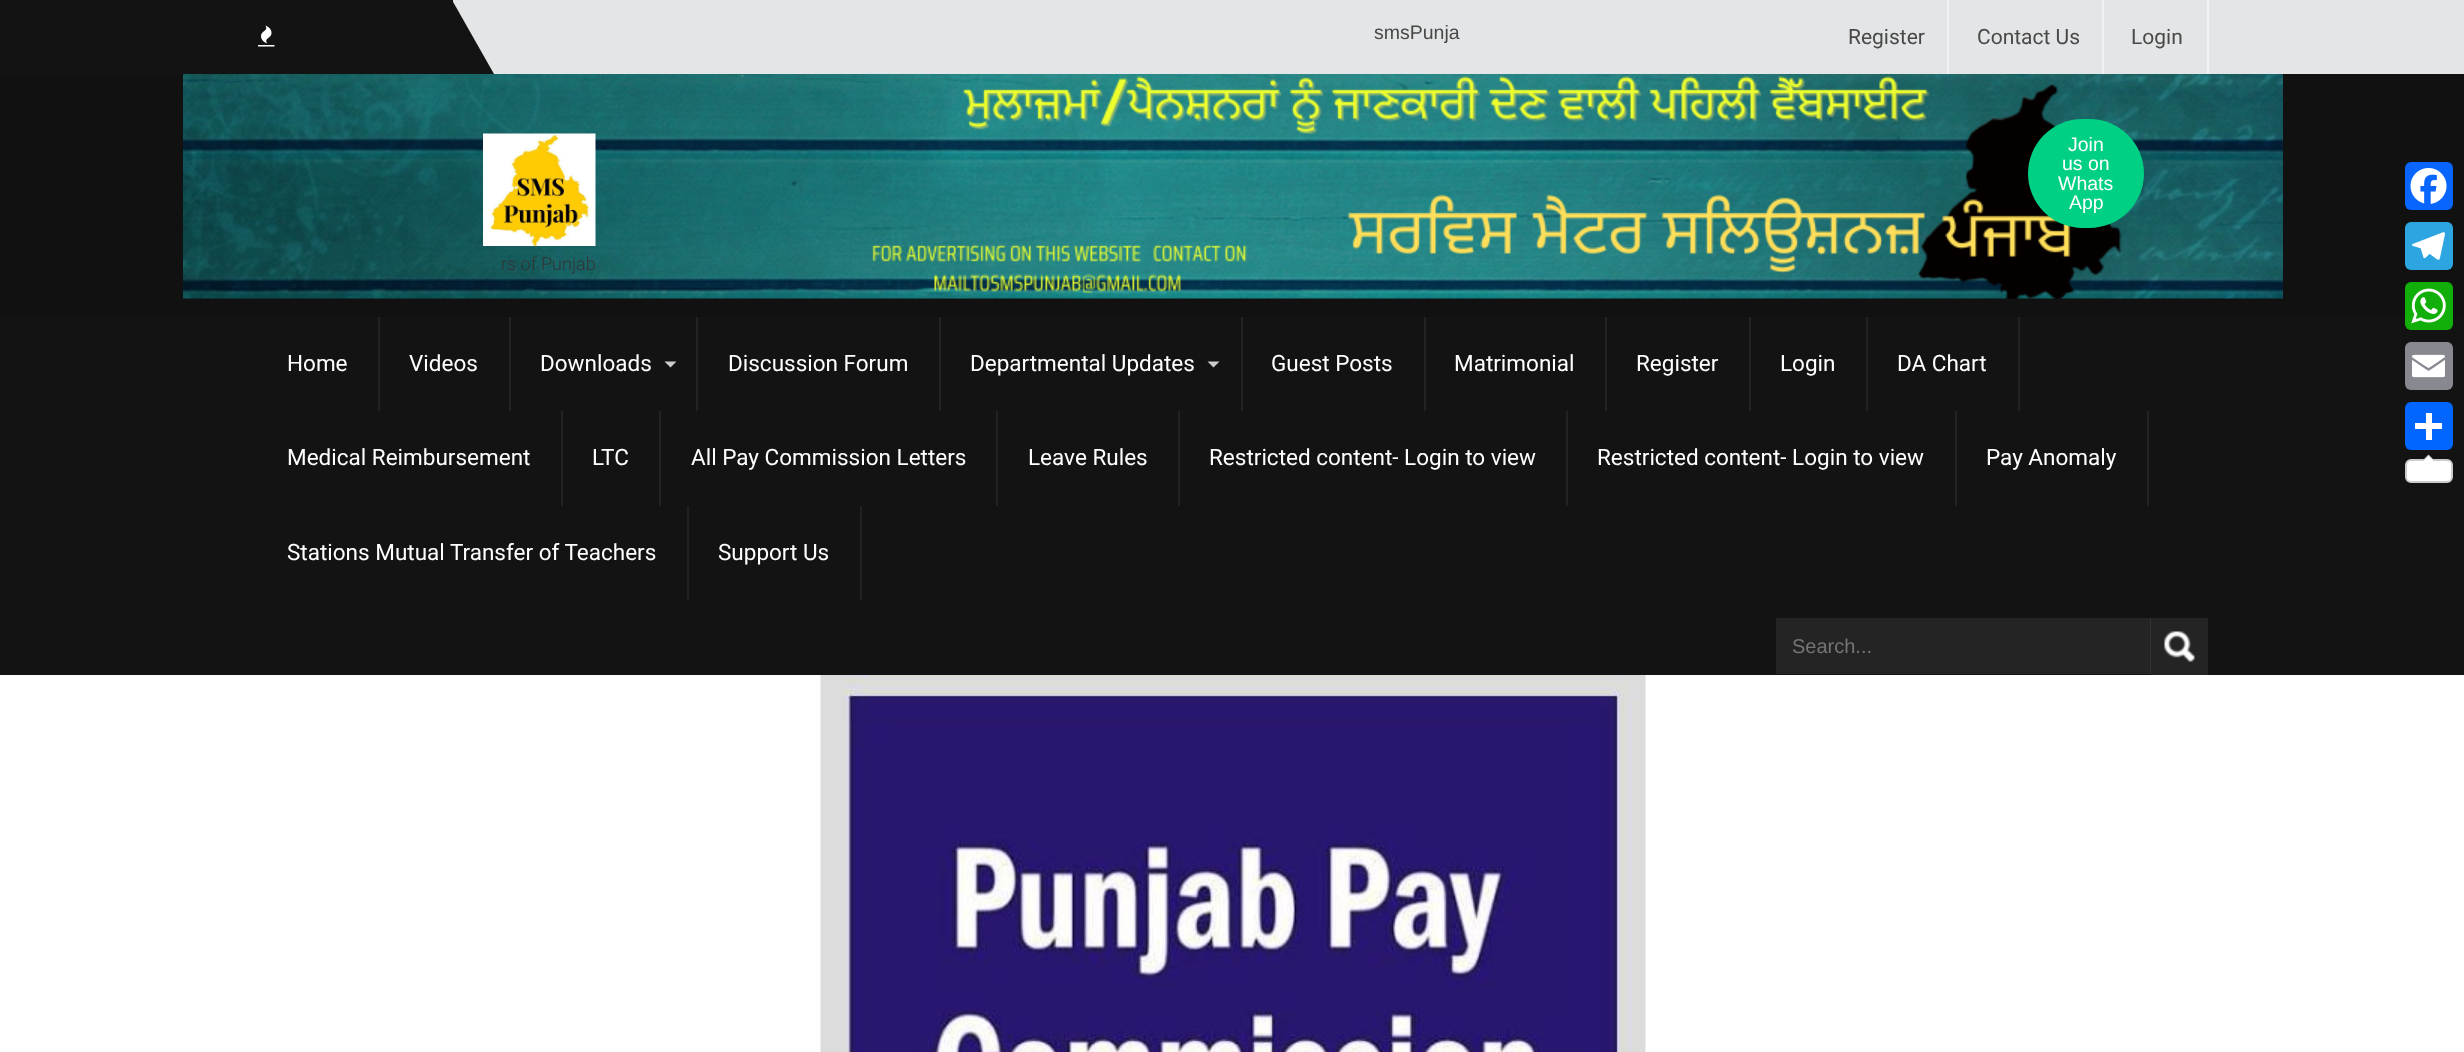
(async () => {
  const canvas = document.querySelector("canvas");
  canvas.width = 2464;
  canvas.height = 1052;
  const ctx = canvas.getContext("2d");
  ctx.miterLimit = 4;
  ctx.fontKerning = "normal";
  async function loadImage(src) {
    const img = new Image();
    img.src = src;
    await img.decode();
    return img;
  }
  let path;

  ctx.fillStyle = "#ffffff";
  ctx.fillRect(0, 0, 2464, 1052);
  ctx.fillStyle = "#131313";
  ctx.fillRect(0, 0, 453, 74);
  ctx.fillStyle = "#e4e5e6";
  ctx.fillRect(453, 0, 1754, 74);
  ctx.fillStyle = "#131313";
  path = new Path2D("M304 0H452L494 74H346Z");
  ctx.fill(path);
  ctx.drawImage(await loadImage("img/1.png"), 258, 25, 17, 22);
  for (const [x, y, w, h, color] of [
    [1947, 0, 2, 74, "#f1f2f3"],
    [2102, 0, 2, 74, "#f1f2f3"],
    [2207, 0, 2, 74, "#f1f2f3"],
    [2209, 0, 255, 74, "#e4e5e6"],
    [0, 74, 2464, 243, "#111111"],
  ]) {
    ctx.fillStyle = color;
    ctx.fillRect(x, y, w, h);
  }
  ctx.drawImage(await loadImage("img/2.png"), 183, 74, 2100, 225);
  ctx.fillStyle = "#00d084";
  ctx.beginPath();
  ctx.roundRect(2028, 119, 116, 109, 54.5);
  ctx.fill();
  ctx.drawImage(await loadImage("img/3.png"), 483, 133, 113, 113);
  for (const [x, y, w, h, color] of [
    [0, 317, 2464, 358, "#131313"],
    [378, 317, 2, 94, "#222222"],
    [509, 317, 2, 94, "#222222"],
    [696, 317, 2, 94, "#222222"],
  ]) {
    ctx.fillStyle = color;
    ctx.fillRect(x, y, w, h);
  }
  ctx.fillStyle = "#cccccc";
  path = new Path2D("M664.5 361.5H676.5L670.5 367.5Z");
  ctx.fill(path);
  ctx.fillStyle = "#222222";
  ctx.fillRect(939, 317, 2, 94);
  ctx.fillRect(1241, 317, 2, 94);
  ctx.fillStyle = "#cccccc";
  path = new Path2D("M1207.5 361.5H1219.5L1213.5 367.5Z");
  ctx.fill(path);
  for (const [x, y, w, h, color] of [
    [1424, 317, 2, 94, "#222222"],
    [1605, 317, 2, 94, "#222222"],
    [1749, 317, 2, 94, "#222222"],
    [1866, 317, 2, 94, "#222222"],
    [2018, 317, 2, 94, "#222222"],
    [561, 411, 2, 95, "#222222"],
    [659, 411, 2, 95, "#222222"],
    [996, 411, 2, 95, "#222222"],
    [1178, 411, 2, 95, "#222222"],
    [1566, 411, 2, 95, "#222222"],
    [1955, 411, 2, 95, "#222222"],
    [2147, 411, 2, 95, "#222222"],
    [687, 506, 2, 94, "#222222"],
    [860, 506, 2, 94, "#222222"],
    [1776, 618, 374, 56, "#242424"],
    [2150, 618, 1, 56, "#323131"],
    [2151, 618, 57, 57, "#242424"],
  ]) {
    ctx.fillStyle = color;
    ctx.fillRect(x, y, w, h);
  }
  ctx.drawImage(await loadImage("img/4.png"), 2164, 631, 31, 31);
  ctx.drawImage(await loadImage("img/5.png"), 820, 675, 826, 377);
  ctx.fillStyle = "#0866ff";
  ctx.beginPath();
  ctx.roundRect(2405, 162, 48, 48, 6);
  ctx.fill();
  ctx.drawImage(await loadImage("img/6.png"), 2410, 168, 37, 36);
  ctx.fillStyle = "#2ca5e0";
  ctx.beginPath();
  ctx.roundRect(2405, 222, 48, 48, 6);
  ctx.fill();
  ctx.drawImage(await loadImage("img/7.png"), 2412, 232, 33, 28);
  ctx.fillStyle = "#12af0a";
  ctx.beginPath();
  ctx.roundRect(2405, 282, 48, 48, 6);
  ctx.fill();
  ctx.drawImage(await loadImage("img/8.png"), 2411, 288, 35, 36);
  ctx.fillStyle = "#888990";
  ctx.beginPath();
  ctx.roundRect(2405, 342, 48, 48, 6);
  ctx.fill();
  ctx.drawImage(await loadImage("img/9.png"), 2412, 354, 33, 24);
  ctx.fillStyle = "#0166ff";
  ctx.beginPath();
  ctx.roundRect(2405, 402, 48, 48, 6);
  ctx.fill();
  ctx.fillStyle = "#ffffff";
  ctx.fillRect(2426, 413, 6, 27);
  ctx.fillRect(2415, 423, 27, 6);
  ctx.beginPath();
  ctx.roundRect(2406, 460, 46, 22, 5);
  ctx.fill();
  ctx.strokeStyle = "#cccccc";
  ctx.lineWidth = 2;
  ctx.stroke();
  ctx.fillStyle = "#cccccc";
  path = new Path2D("M2434.5 460.5H2422.5L2428.5 454.5Z");
  ctx.fill(path);
  ctx.fillStyle = "#ffffff";
  path = new Path2D("M2434.5 462H2422.5L2428.5 456Z");
  ctx.fill(path);
  ctx.font = "19.5px Arimo";
  ctx.fillStyle = "#494949";
  ctx.fillText("smsPunja", 1374, 39);
  ctx.font = "21px Roboto";
  for (const [text, x, y] of [
    ["Register", 1848, 44],
    ["Contact Us", 1977, 44],
    ["Login", 2131, 44],
  ]) {
    ctx.fillText(text, x, y);
  }
  ctx.font = "19.5px Arimo";
  ctx.fillStyle = "#ffffff";
  for (const [text, x, y] of [
    ["Join", 2068, 151],
    ["us on", 2062, 170],
    ["Whats", 2058, 190],
    ["App", 2069, 209],
  ]) {
    ctx.fillText(text, x, y);
  }
  ctx.font = "300 18px Roboto";
  ctx.fillStyle = "#333333";
  ctx.fillText("rs of Punjab", 501, 270);
  ctx.font = "22.5px Roboto";
  ctx.fillStyle = "#ffffff";
  for (const [text, x, y] of [
    ["Home", 287, 371],
    ["Videos", 409, 371],
    ["Downloads", 540, 371],
    ["Discussion Forum", 728, 371],
    ["Departmental Updates", 970, 371],
    ["Guest Posts", 1271, 371],
    ["Matrimonial", 1454, 371],
    ["Register", 1636, 371],
    ["Login", 1780, 371],
    ["DA Chart", 1897, 371],
    ["Medical Reimbursement", 287, 465],
    ["LTC", 592, 465],
    ["All Pay Commission Letters", 691, 465],
    ["Leave Rules", 1028, 465],
    ["Restricted content- Login to view", 1209, 465],
    ["Restricted content- Login to view", 1597, 465],
    ["Pay Anomaly", 1986, 465],
    ["Stations Mutual Transfer of Teachers", 287, 560],
    ["Support Us", 718, 560],
  ]) {
    ctx.fillText(text, x, y);
  }
  ctx.font = "20px Liberation Sans";
  ctx.fillStyle = "#757575";
  ctx.fillText("Search...", 1792, 653);
})();
